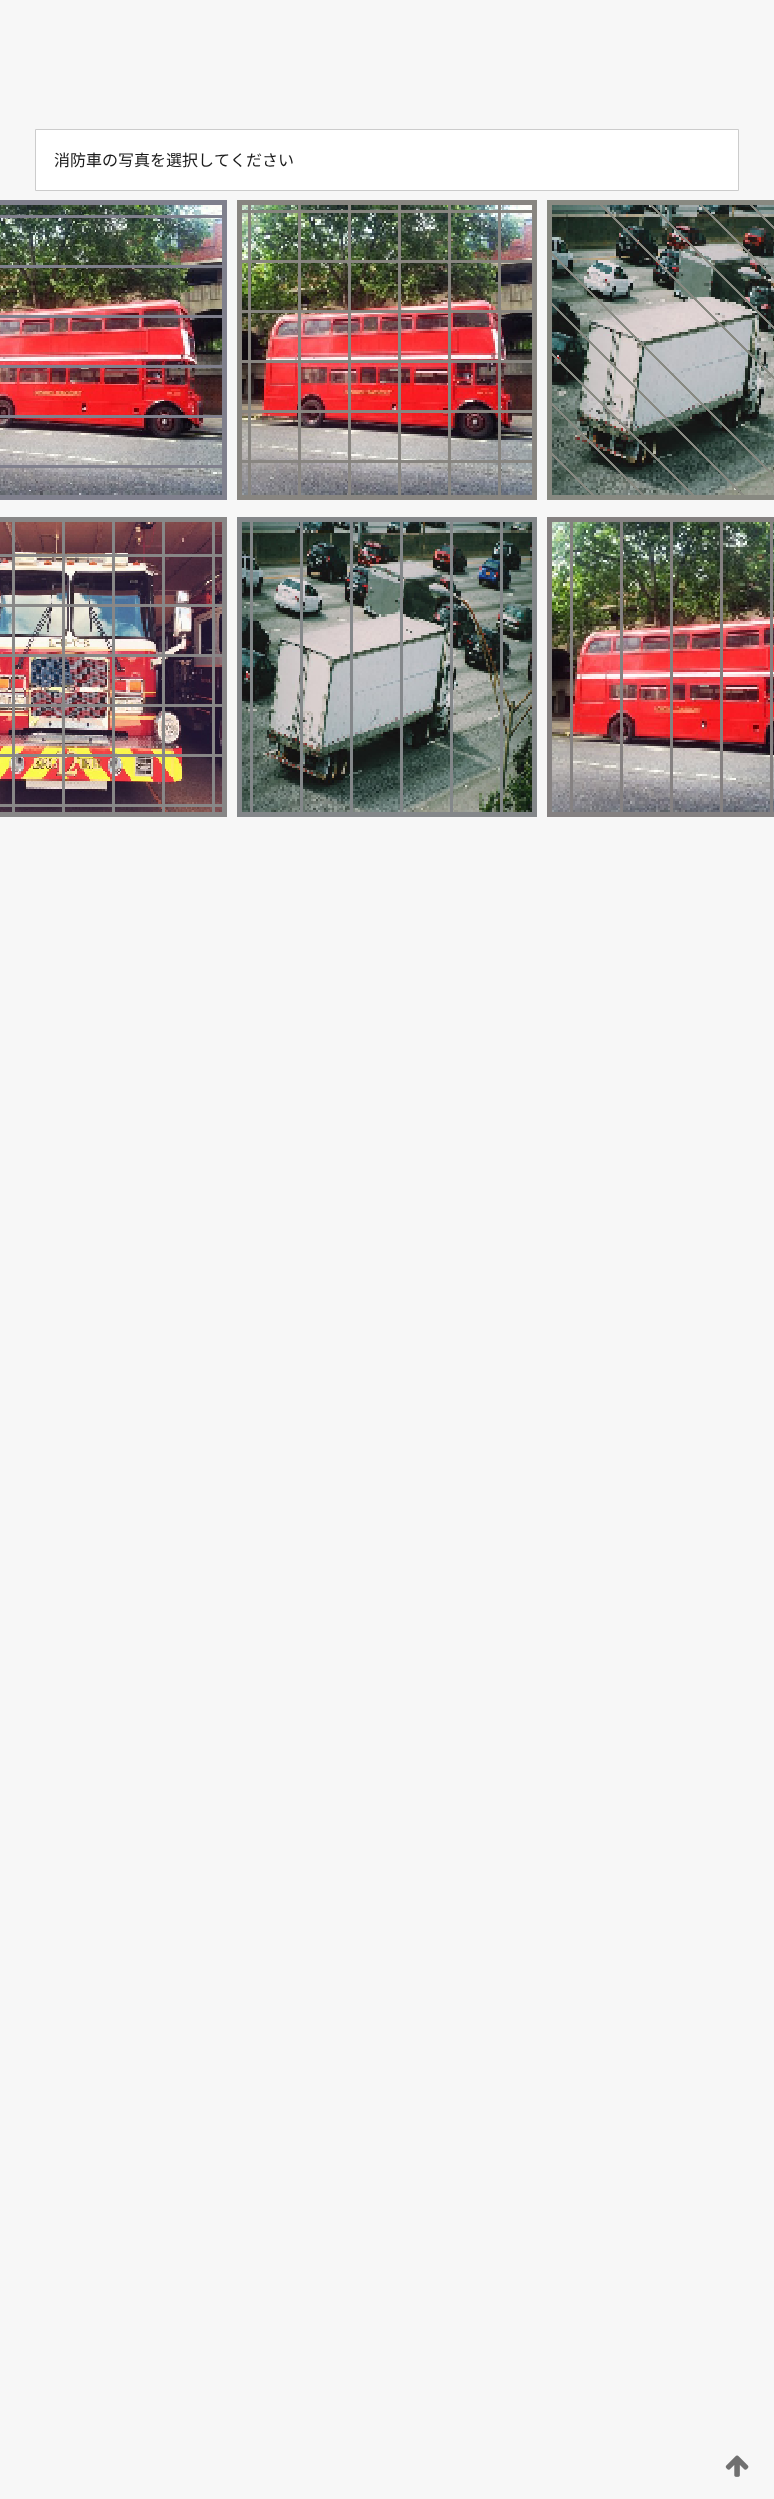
(async () => {
  const canvas = document.querySelector("canvas");
  canvas.width = 774;
  canvas.height = 2499;
  const ctx = canvas.getContext("2d");
  ctx.miterLimit = 4;
  ctx.fontKerning = "normal";
  async function loadImage(src) {
    const img = new Image();
    img.src = src;
    await img.decode();
    return img;
  }

  ctx.fillStyle = "#f7f7f7";
  ctx.fillRect(0, 0, 774, 2499);
  ctx.fillStyle = "#ffffff";
  ctx.beginPath();
  ctx.rect(35.5, 129.5, 703, 61);
  ctx.fill();
  ctx.strokeStyle = "#cccccc";
  ctx.stroke();
  ctx.drawImage(await loadImage("img/1.png"), 0, 200, 227, 300);
  ctx.drawImage(await loadImage("img/2.png"), 237, 200, 300, 300);
  ctx.drawImage(await loadImage("img/3.png"), 547, 200, 227, 300);
  ctx.drawImage(await loadImage("img/4.png"), 0, 517, 227, 300);
  ctx.drawImage(await loadImage("img/5.png"), 237, 517, 300, 300);
  ctx.drawImage(await loadImage("img/6.png"), 547, 517, 227, 300);
  ctx.drawImage(await loadImage("img/7.png"), 725, 2455, 24, 22);
  ctx.font = "100 16px Noto Sans SC";
  ctx.fillStyle = "#1a1a1a";
  ctx.fillText("消防車の写真を選択してください", 54, 166);
})();
